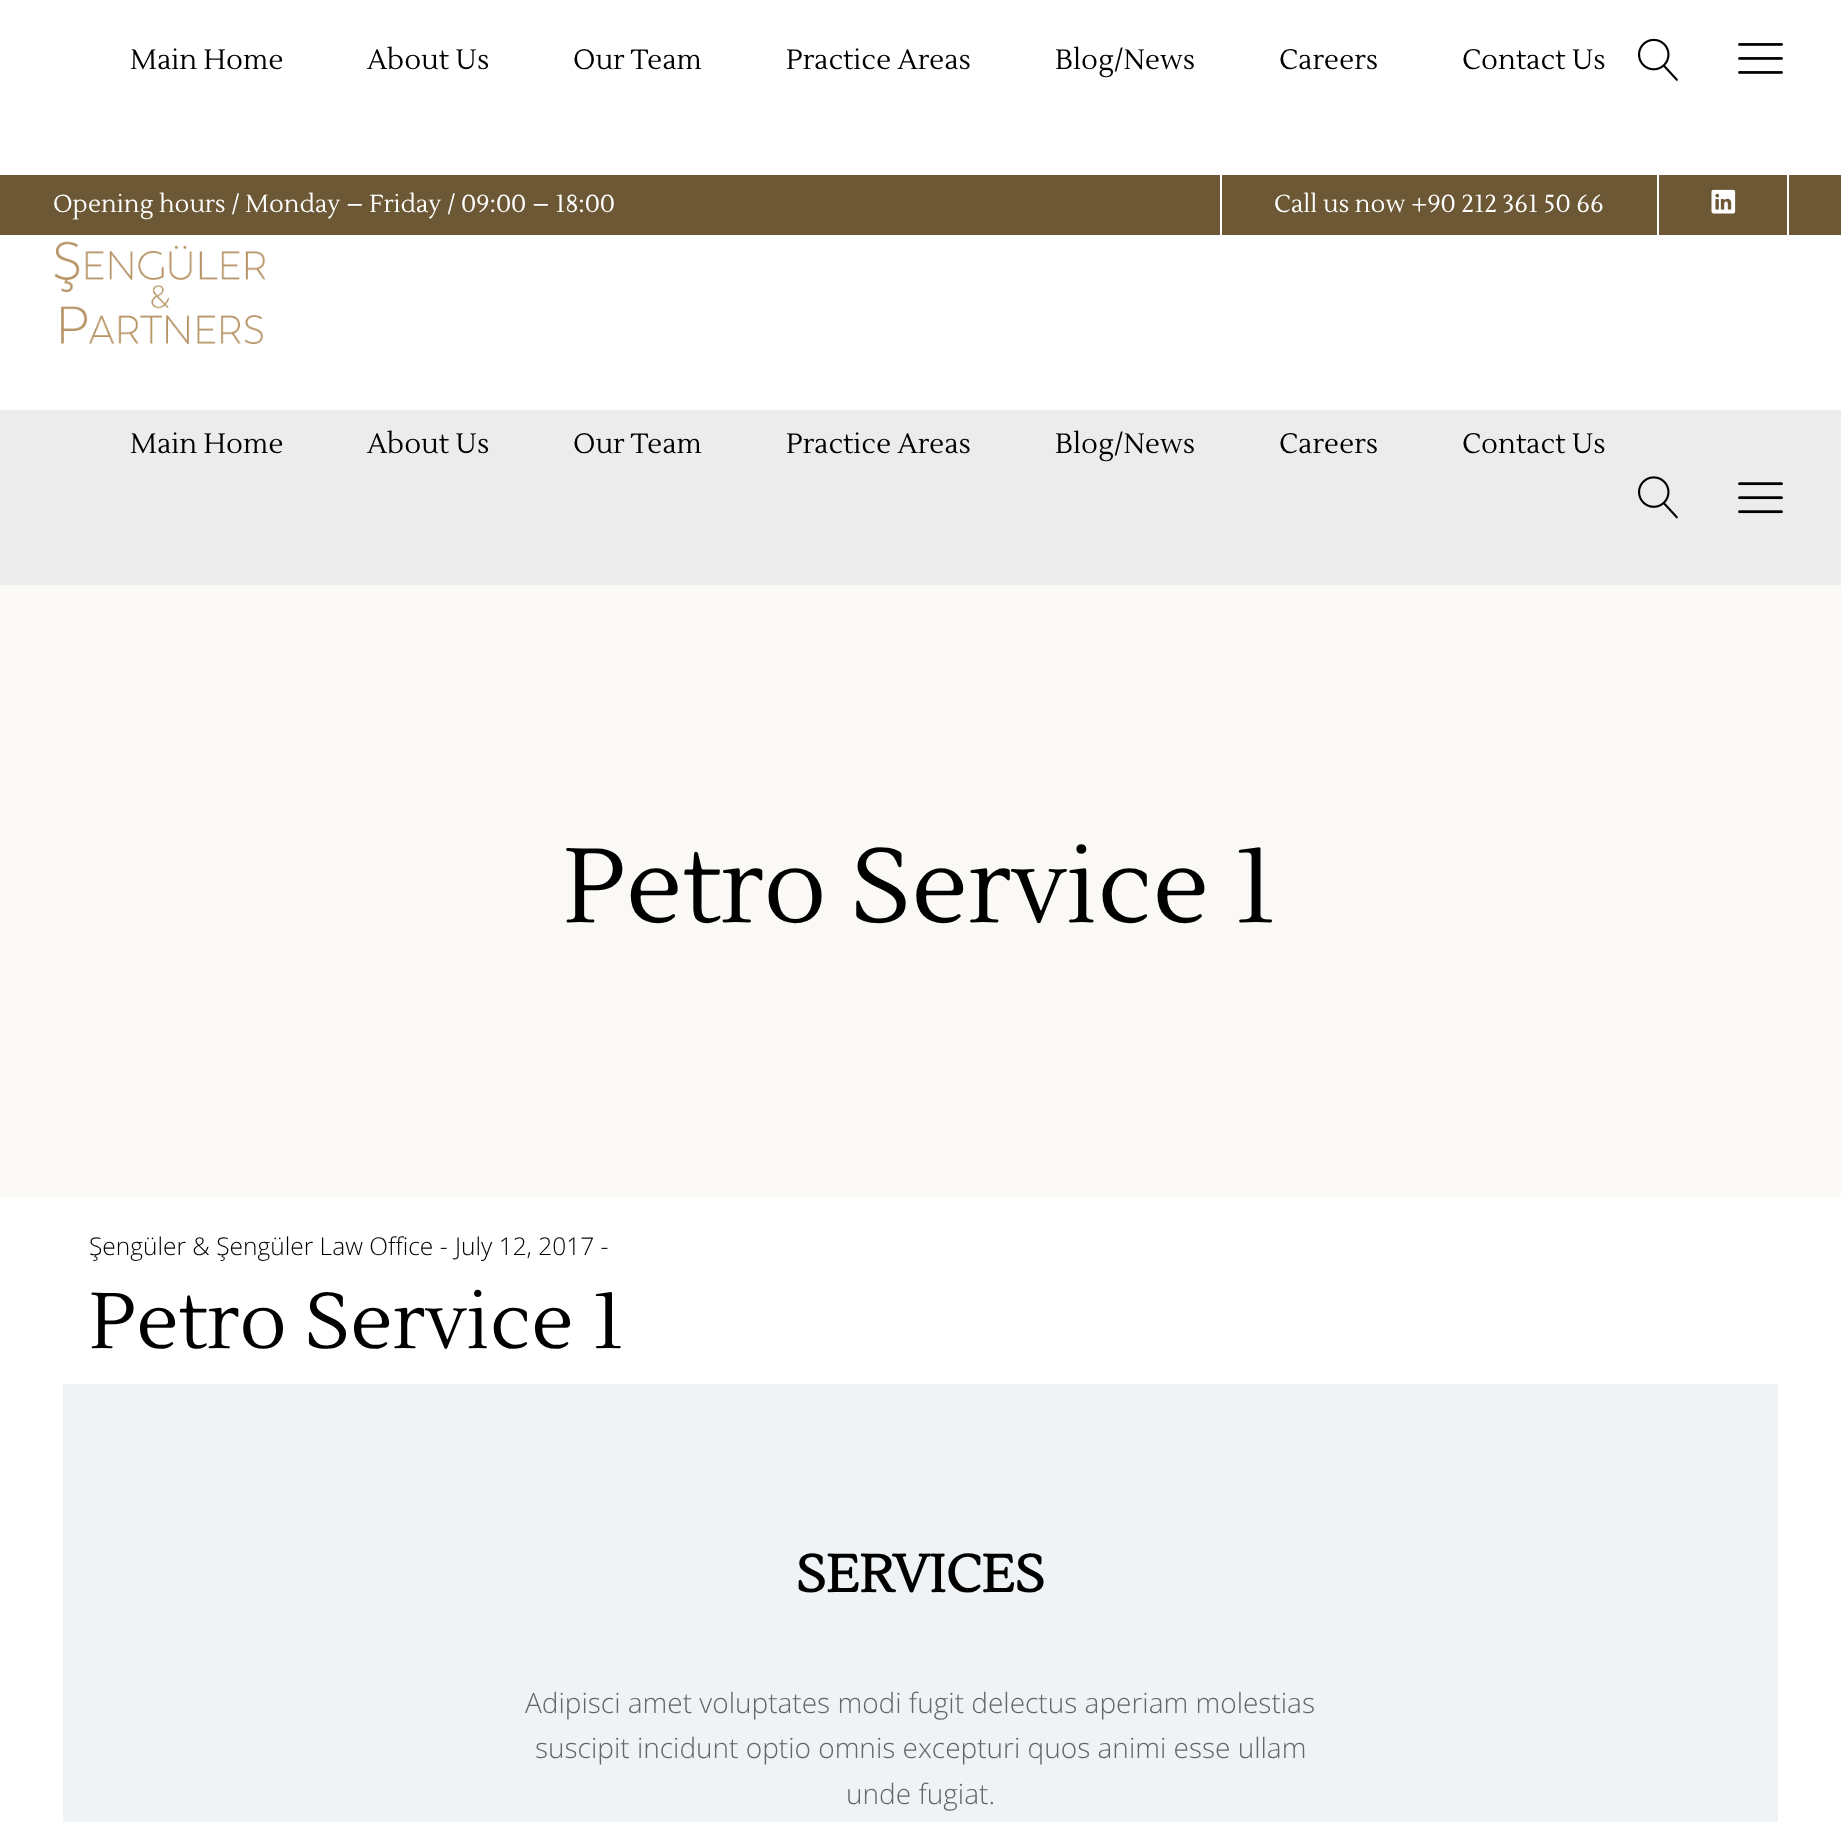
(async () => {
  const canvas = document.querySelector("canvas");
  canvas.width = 1841;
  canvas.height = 1822;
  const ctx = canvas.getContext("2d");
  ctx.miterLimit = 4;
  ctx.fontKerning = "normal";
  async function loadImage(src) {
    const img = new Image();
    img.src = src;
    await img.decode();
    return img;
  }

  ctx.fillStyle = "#ffffff";
  ctx.fillRect(0, 0, 1841, 1822);
  ctx.fillStyle = "#ececec";
  ctx.fillRect(0, 410, 1841, 175);
  ctx.drawImage(await loadImage("img/1.png"), 1638, 38, 40, 43);
  ctx.drawImage(await loadImage("img/2.png"), 1738, 43, 45, 31);
  ctx.drawImage(await loadImage("img/3.png"), 54, 241, 212, 103);
  ctx.drawImage(await loadImage("img/4.png"), 1638, 476, 40, 43);
  ctx.drawImage(await loadImage("img/5.png"), 1738, 482, 45, 32);
  for (const [x, y, w, h, color] of [
    [0, 175, 1841, 60, "#6c5835"],
    [1220, 175, 2, 60, "#ffffff"],
    [1657, 175, 2, 60, "#ffffff"],
  ]) {
    ctx.fillStyle = color;
    ctx.fillRect(x, y, w, h);
  }
  ctx.drawImage(await loadImage("img/6.png"), 1711, 189, 25, 25);
  for (const [x, y, w, h, color] of [
    [1787, 175, 2, 60, "#ffffff"],
    [0, 585, 1841, 612, "#fbf9f6"],
    [63, 1384, 1715, 438, "#eff3f6"],
  ]) {
    ctx.fillStyle = color;
    ctx.fillRect(x, y, w, h);
  }
  ctx.font = "28px Lustria";
  ctx.fillStyle = "#000000";
  for (const [text, x, y] of [
    ["Main Home", 130, 69],
    ["About Us", 367, 69],
    ["Our Team", 573, 69],
    ["Practice Areas", 786, 69],
    ["Blog/News", 1055, 69],
    ["Careers", 1279, 69],
    ["Contact Us", 1462, 69],
    ["Main Home", 130, 453],
    ["About Us", 367, 453],
    ["Our Team", 573, 453],
    ["Practice Areas", 786, 453],
    ["Blog/News", 1055, 453],
    ["Careers", 1279, 453],
    ["Contact Us", 1462, 453],
  ]) {
    ctx.fillText(text, x, y);
  }
  ctx.font = "24.5px Lustria";
  ctx.fillStyle = "#ffffff";
  ctx.fillText("Opening hours / Monday – Friday / 09:00 – 18:00", 53, 212);
  ctx.fillText("Call us now +90 212 361 50 66", 1274, 212);
  ctx.font = "105px Lustria";
  ctx.fillStyle = "#000000";
  ctx.fillText("Petro Service 1", 563, 922);
  ctx.font = "300 24.5px Open Sans";
  ctx.fillText("Şengüler & Şengüler Law Office -", 89, 1255);
  ctx.fillText("July 12, 2017 -", 455, 1255);
  ctx.font = "78.75px Lustria";
  ctx.fillText("Petro Service 1", 89, 1348);
  ctx.font = "bold 52.5px Lustria";
  ctx.fillText("SERVICES", 796, 1592);
  ctx.font = "300 28px Open Sans";
  ctx.fillStyle = "#656565";
  for (const [text, x, y] of [
    ["Adipisci amet voluptates modi fugit delectus aperiam molestias", 525, 1713],
    ["suscipit incidunt optio omnis excepturi quos animi esse ullam", 535, 1758],
    ["unde fugiat.", 846, 1804],
  ]) {
    ctx.fillText(text, x, y);
  }
})();
